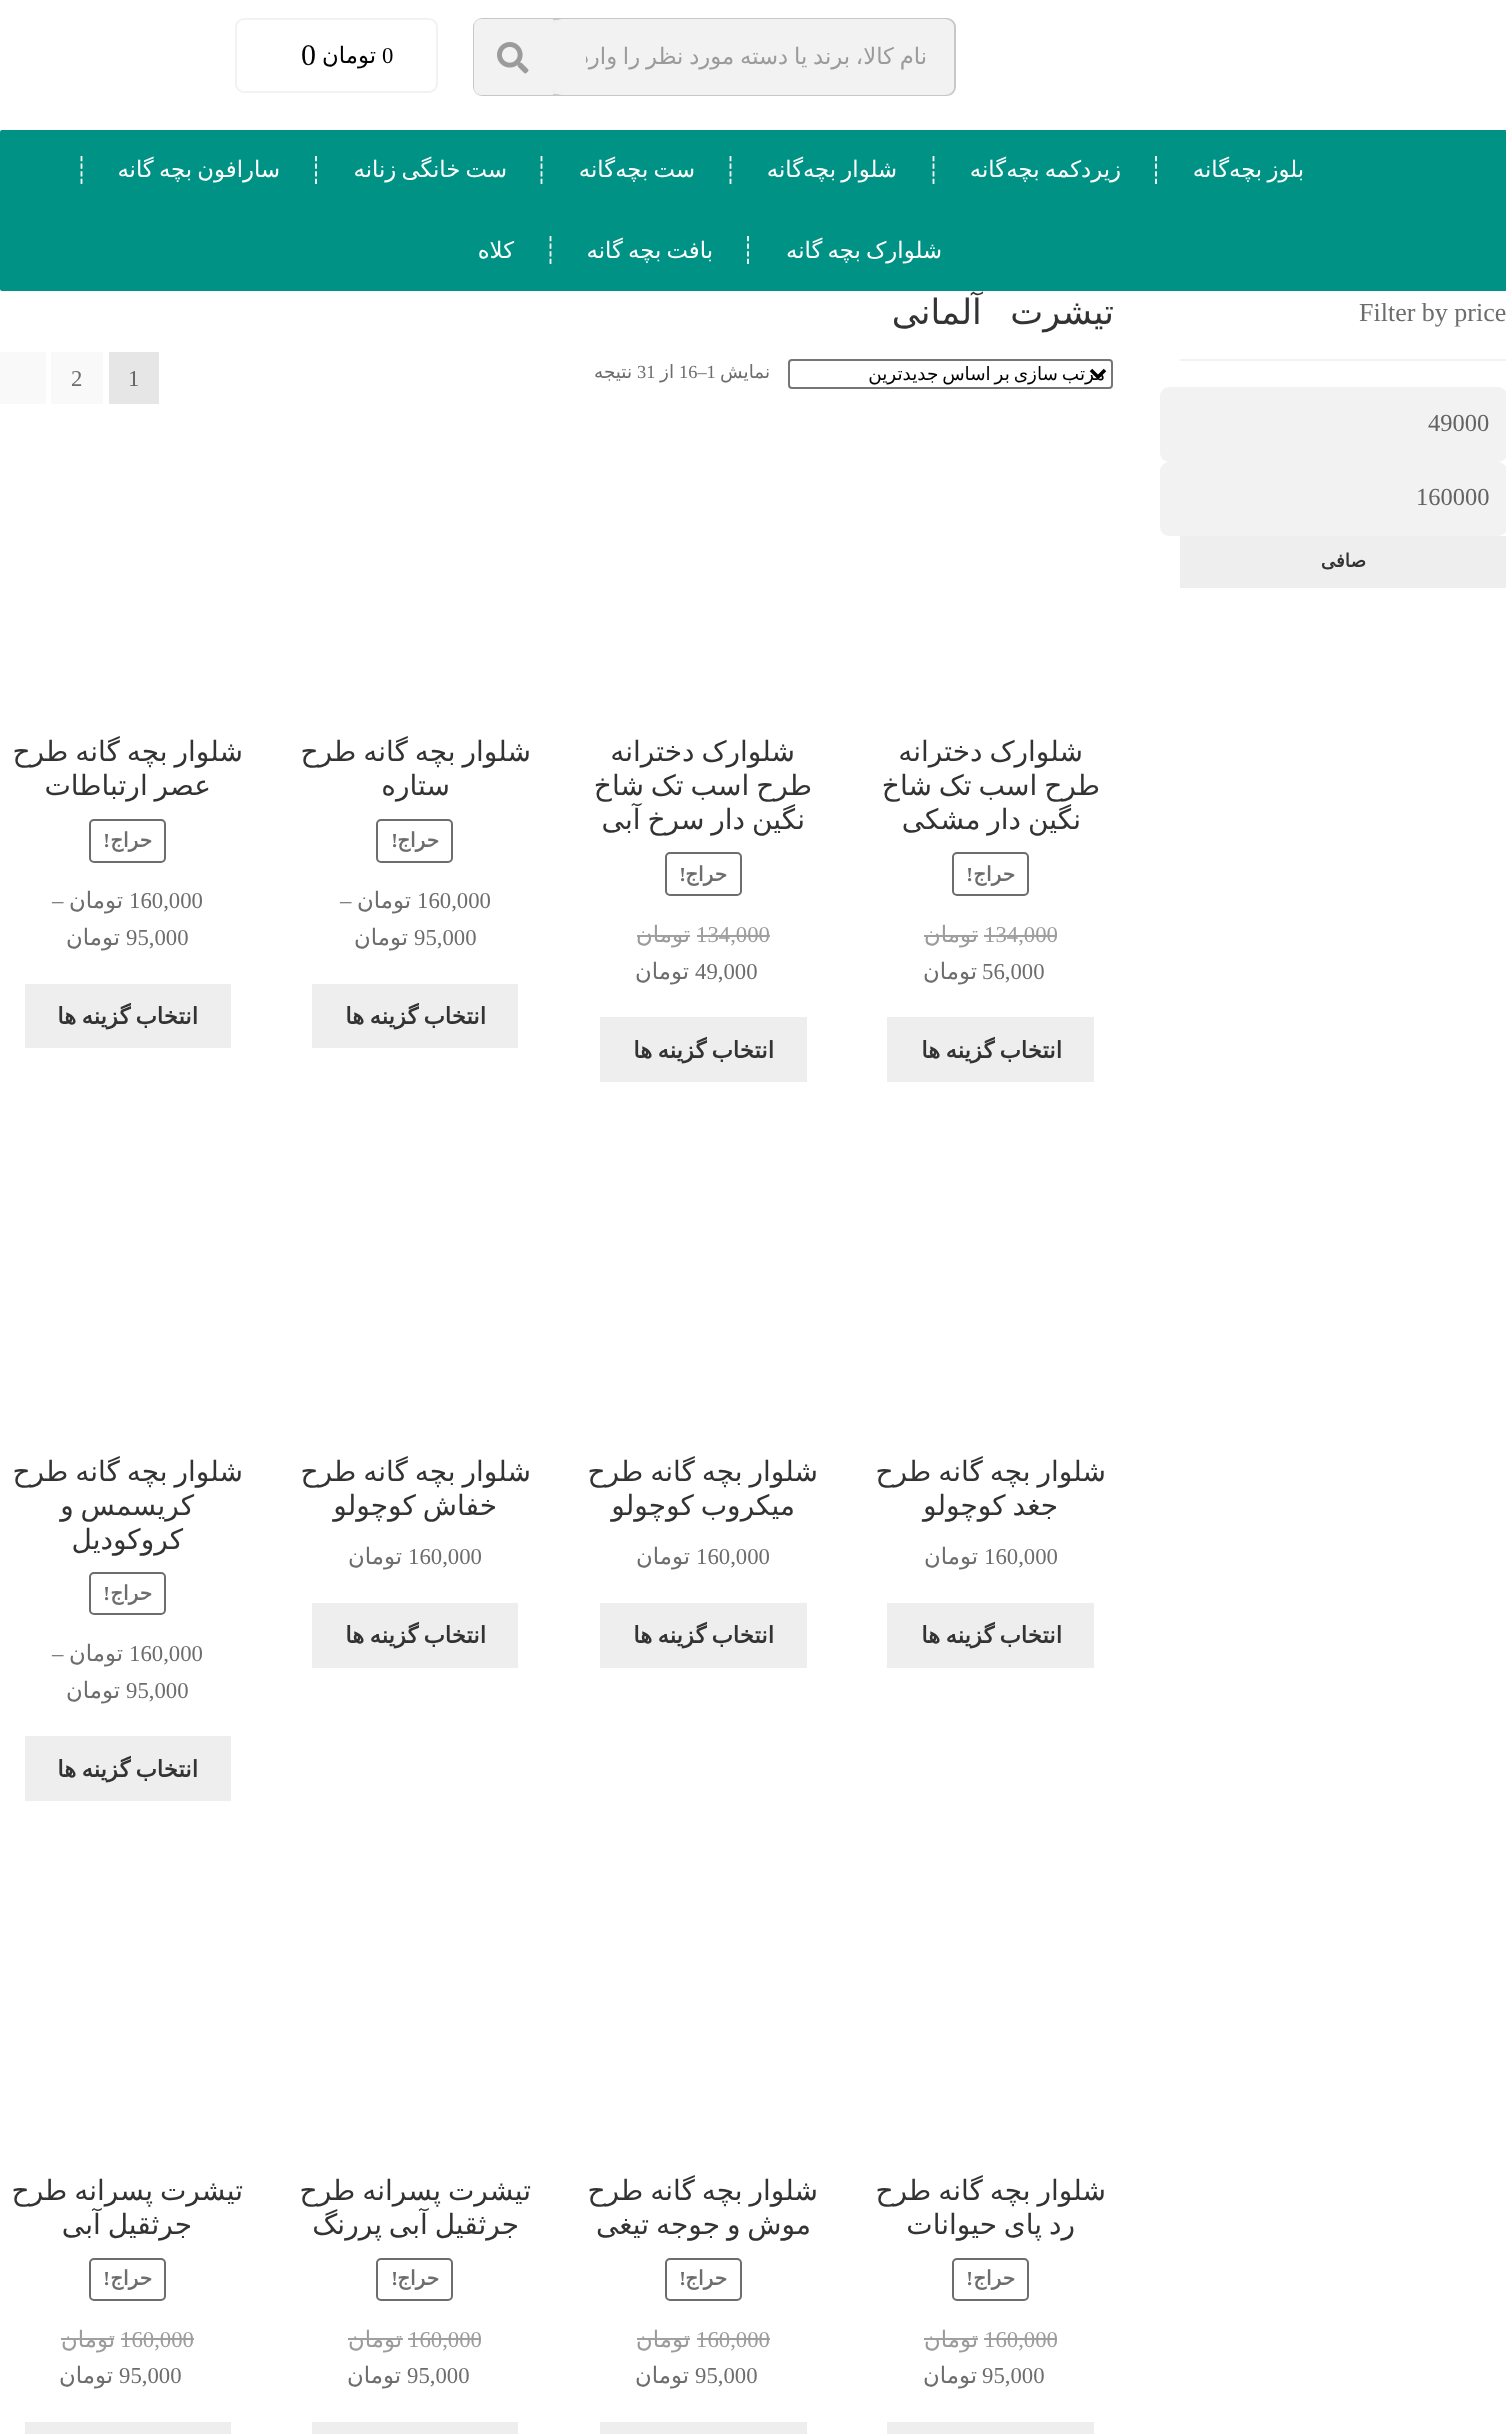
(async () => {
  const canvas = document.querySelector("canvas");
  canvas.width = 1506;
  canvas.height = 2434;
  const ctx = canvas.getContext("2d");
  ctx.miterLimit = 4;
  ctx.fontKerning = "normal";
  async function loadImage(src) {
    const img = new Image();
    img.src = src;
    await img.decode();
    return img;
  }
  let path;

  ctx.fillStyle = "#ffffff";
  ctx.fillRect(0, 0, 1506, 2434);
  ctx.fillStyle = "#eceeef";
  ctx.beginPath();
  ctx.roundRect(474, 19, 481, 76, 8);
  ctx.fill();
  ctx.strokeStyle = "#c7c7c7";
  ctx.lineWidth = 2;
  ctx.stroke();
  ctx.save();
  ctx.beginPath();
  ctx.roundRect(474, 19, 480, 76, 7);
  ctx.clip();
  ctx.fillStyle = "rgba(242, 242, 242, 0.5)";
  ctx.filter = "blur(9px)";
  ctx.beginPath();
  ctx.roundRect(555, 25, 401, 75, 9);
  ctx.fill();
  ctx.filter = "none";
  ctx.restore();
  ctx.fillStyle = "#f2f2f2";
  ctx.beginPath();
  ctx.roundRect(553, 19, 401, 76, 9);
  ctx.fill();
  ctx.beginPath();
  ctx.roundRect(474, 19, 79, 76, [7, 0, 0, 7]);
  ctx.fill();
  ctx.drawImage(await loadImage("img/1.png"), 497, 42, 32, 32);
  ctx.beginPath();
  ctx.roundRect(236, 19, 201, 73, 8);
  ctx.strokeStyle = "#f2f2f2";
  ctx.stroke();
  ctx.fillStyle = "#009285";
  ctx.beginPath();
  ctx.roundRect(0, 130, 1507, 161, 2);
  ctx.fill();
  path = new Path2D("M1156 156V184");
  ctx.strokeStyle = "#ffffff";
  ctx.lineWidth = 1.8;
  ctx.setLineDash([5.25, 2.33]);
  ctx.stroke(path);
  path = new Path2D("M933.5 156V184");
  ctx.stroke(path);
  path = new Path2D("M730.5 156V184");
  ctx.stroke(path);
  path = new Path2D("M541.5 156V184");
  ctx.stroke(path);
  path = new Path2D("M316 156V184");
  ctx.stroke(path);
  path = new Path2D("M81.5 156V184");
  ctx.stroke(path);
  path = new Path2D("M748 236V264");
  ctx.stroke(path);
  path = new Path2D("M550.5 236V264");
  ctx.stroke(path);
  ctx.fillStyle = "#f2f2f2";
  ctx.fillRect(1180, 359, 326, 2);
  ctx.beginPath();
  ctx.roundRect(1160, 387, 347, 75, 9);
  ctx.fill();
  ctx.beginPath();
  ctx.roundRect(1160, 462, 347, 74, 9);
  ctx.fill();
  ctx.fillStyle = "#eeeeee";
  ctx.fillRect(1180, 536, 326, 52);
  ctx.beginPath();
  ctx.roundRect(789, 360, 323, 28, 3);
  ctx.strokeStyle = "#767676";
  ctx.lineWidth = 2;
  ctx.setLineDash([]);
  ctx.stroke();
  path = new Path2D("M1091 370L1098 377L1105 370");
  ctx.strokeStyle = "#000000";
  ctx.lineWidth = 3.5;
  ctx.stroke(path);
  for (const [x, y, w, h, color] of [
    [109, 352, 50, 52, "#e6e6e6"],
    [51, 352, 52, 52, "#f9f9f9"],
    [0, 352, 46, 52, "#f9f9f9"],
  ]) {
    ctx.fillStyle = color;
    ctx.fillRect(x, y, w, h);
  }
  ctx.beginPath();
  ctx.roundRect(953, 853, 75, 42, 4);
  ctx.strokeStyle = "#6d6d6d";
  ctx.lineWidth = 2;
  ctx.stroke();
  ctx.fillStyle = "#eeeeee";
  ctx.fillRect(887, 1017, 207, 65);
  ctx.beginPath();
  ctx.roundRect(666, 853, 75, 42, 4);
  ctx.stroke();
  ctx.fillRect(600, 1017, 207, 65);
  ctx.beginPath();
  ctx.roundRect(377, 820, 75, 42, 4);
  ctx.stroke();
  ctx.fillRect(312, 984, 206, 64);
  ctx.beginPath();
  ctx.roundRect(90, 820, 75, 42, 4);
  ctx.stroke();
  for (const [x, y, w, h, color] of [
    [25, 984, 206, 64, "#eeeeee"],
    [887, 1603, 207, 65, "#eeeeee"],
    [600, 1603, 207, 65, "#eeeeee"],
    [312, 1603, 206, 65, "#eeeeee"],
  ]) {
    ctx.fillStyle = color;
    ctx.fillRect(x, y, w, h);
  }
  ctx.beginPath();
  ctx.roundRect(90, 1573, 75, 41, 4);
  ctx.stroke();
  ctx.fillRect(25, 1736, 206, 65);
  ctx.beginPath();
  ctx.roundRect(953, 2259, 75, 41, 4);
  ctx.stroke();
  ctx.fillRect(887, 2422, 207, 12);
  ctx.beginPath();
  ctx.roundRect(666, 2259, 75, 41, 4);
  ctx.stroke();
  ctx.fillRect(600, 2422, 207, 12);
  ctx.beginPath();
  ctx.roundRect(377, 2259, 75, 41, 4);
  ctx.stroke();
  ctx.fillRect(312, 2422, 206, 12);
  ctx.beginPath();
  ctx.roundRect(90, 2259, 75, 41, 4);
  ctx.stroke();
  ctx.fillRect(25, 2422, 206, 12);
  ctx.save();
  ctx.beginPath();
  ctx.rect(586, 44, 342, 28);
  ctx.clip();
  ctx.wordSpacing = "-1.5px";
  ctx.direction = "rtl";
  ctx.font = "22.75px DejaVu Sans";
  ctx.fillStyle = "#9b9b9b";
  ctx.fillText("نام کالا، برند یا دسته مورد نظر را وارد کنید", 927, 64);
  ctx.restore();
  ctx.font = "22.75px Liberation Serif";
  ctx.fillStyle = "#000000";
  ctx.fillText("0", 382, 63);
  ctx.direction = "rtl";
  ctx.font = "22.75px DejaVu Sans";
  ctx.fillText("تومان", 376, 63);
  ctx.direction = "ltr";
  ctx.font = "30px Liberation Serif";
  ctx.fillText("0", 301, 65);
  ctx.wordSpacing = "-2px";
  ctx.direction = "rtl";
  ctx.font = "22.75px DejaVu Sans";
  ctx.fillStyle = "#ffffff";
  ctx.fillText("بلوز بچه", 1304, 177);
  ctx.wordSpacing = "0px";
  ctx.fillText("گانه", 1229, 177);
  ctx.wordSpacing = "-2px";
  ctx.fillText("زیردکمه بچه", 1121, 177);
  ctx.wordSpacing = "0px";
  ctx.fillText("گانه", 1006, 177);
  ctx.wordSpacing = "-2px";
  ctx.fillText("شلوار بچه", 897, 177);
  ctx.wordSpacing = "0px";
  ctx.fillText("گانه", 803, 177);
  ctx.wordSpacing = "-2px";
  ctx.fillText("ست بچه", 695, 177);
  ctx.wordSpacing = "0px";
  ctx.fillText("گانه", 615, 177);
  ctx.wordSpacing = "-2px";
  for (const [text, x, y] of [
    ["ست خانگی زنانه", 507, 177],
    ["سارافون بچه گانه", 280, 177],
    ["شلوارک بچه گانه", 942, 258],
    ["بافت بچه گانه", 713, 258],
  ]) {
    ctx.fillText(text, x, y);
  }
  ctx.wordSpacing = "0px";
  ctx.fillText("کلاه", 514, 258);
  ctx.direction = "ltr";
  ctx.font = "26px Liberation Serif";
  ctx.fillStyle = "#6d6d6d";
  ctx.fillText("Filter by price", 1359, 321);
  ctx.font = "24.5px Liberation Serif";
  ctx.fillStyle = "#636363";
  ctx.fillText("49000", 1428, 431);
  ctx.fillText("160000", 1416, 505);
  ctx.direction = "rtl";
  ctx.font = "bold 18.4px DejaVu Sans";
  ctx.fillStyle = "#333333";
  ctx.fillText("صافی", 1366, 567);
  ctx.letterSpacing = "-1.75px";
  ctx.wordSpacing = "19px";
  ctx.font = "35px DejaVu Sans";
  ctx.fillText("تیشرت آلمانی", 1114, 324);
  ctx.letterSpacing = "0px";
  ctx.wordSpacing = "-2px";
  ctx.font = "18.4px DejaVu Sans";
  ctx.fillStyle = "#000000";
  ctx.fillText("مرتب سازی بر اساس جدیدترین", 1105, 380);
  ctx.wordSpacing = "0px";
  ctx.fillStyle = "#6d6d6d";
  ctx.fillText("نمایش", 770, 378);
  ctx.direction = "ltr";
  ctx.font = "18.4px Liberation Serif";
  ctx.fillText("16–1", 679, 378);
  ctx.direction = "rtl";
  ctx.font = "18.4px DejaVu Sans";
  ctx.fillText("از", 674, 378);
  ctx.direction = "ltr";
  ctx.font = "18.4px Liberation Serif";
  ctx.fillText("31", 637, 378);
  ctx.direction = "rtl";
  ctx.font = "18.4px DejaVu Sans";
  ctx.fillText("نتیجه", 632, 378);
  ctx.direction = "ltr";
  ctx.font = "22.75px Liberation Serif";
  ctx.fillStyle = "#636363";
  ctx.fillText("1", 128, 386);
  ctx.fillStyle = "#6d6d6d";
  ctx.fillText("2", 71, 386);
  ctx.wordSpacing = "-2px";
  ctx.direction = "rtl";
  ctx.font = "28px DejaVu Sans";
  ctx.fillStyle = "#333333";
  for (const [text, x, y] of [
    ["شلوارک دخترانه", 1083, 761],
    ["طرح اسب تک شاخ", 1100, 795],
    ["نگین دار مشکی", 1081, 829],
  ]) {
    ctx.fillText(text, x, y);
  }
  ctx.wordSpacing = "0px";
  ctx.font = "bold 20px DejaVu Sans";
  ctx.fillStyle = "#6d6d6d";
  ctx.fillText("حراج", 1015, 881);
  ctx.font = "bold 20px Liberation Serif";
  ctx.fillText("!", 973, 881);
  ctx.direction = "ltr";
  ctx.font = "22.75px Liberation Serif";
  ctx.fillStyle = "#9b9b9b";
  ctx.fillText("134,000", 984, 942);
  ctx.fillStyle = "#a0a0a0";
  ctx.fillRect(984, 935, 73, 2);
  ctx.direction = "rtl";
  ctx.font = "22.75px DejaVu Sans";
  ctx.fillStyle = "#9b9b9b";
  ctx.fillText("تومان", 978, 942);
  ctx.fillStyle = "#a0a0a0";
  ctx.fillRect(924, 935, 54, 2);
  ctx.direction = "ltr";
  ctx.font = "22.75px Liberation Serif";
  ctx.fillStyle = "#6d6d6d";
  ctx.fillText("56,000", 982, 979);
  ctx.direction = "rtl";
  ctx.font = "22.75px DejaVu Sans";
  ctx.fillText("تومان", 977, 979);
  ctx.wordSpacing = "-2px";
  ctx.font = "bold 22.75px DejaVu Sans";
  ctx.fillStyle = "#333333";
  ctx.fillText("انتخاب گزینه ها", 1062, 1058);
  ctx.font = "28px DejaVu Sans";
  for (const [text, x, y] of [
    ["شلوارک دخترانه", 795, 761],
    ["طرح اسب تک شاخ", 812, 795],
    ["نگین دار سرخ آبی", 805, 829],
  ]) {
    ctx.fillText(text, x, y);
  }
  ctx.wordSpacing = "0px";
  ctx.font = "bold 20px DejaVu Sans";
  ctx.fillStyle = "#6d6d6d";
  ctx.fillText("حراج", 727, 881);
  ctx.font = "bold 20px Liberation Serif";
  ctx.fillText("!", 686, 881);
  ctx.direction = "ltr";
  ctx.font = "22.75px Liberation Serif";
  ctx.fillStyle = "#9b9b9b";
  ctx.fillText("134,000", 696, 942);
  ctx.fillStyle = "#a0a0a0";
  ctx.fillRect(697, 935, 73, 2);
  ctx.direction = "rtl";
  ctx.font = "22.75px DejaVu Sans";
  ctx.fillStyle = "#9b9b9b";
  ctx.fillText("تومان", 690, 942);
  ctx.fillStyle = "#a0a0a0";
  ctx.fillRect(637, 935, 53, 2);
  ctx.direction = "ltr";
  ctx.font = "22.75px Liberation Serif";
  ctx.fillStyle = "#6d6d6d";
  ctx.fillText("49,000", 695, 979);
  ctx.direction = "rtl";
  ctx.font = "22.75px DejaVu Sans";
  ctx.fillText("تومان", 689, 979);
  ctx.wordSpacing = "-2px";
  ctx.font = "bold 22.75px DejaVu Sans";
  ctx.fillStyle = "#333333";
  ctx.fillText("انتخاب گزینه ها", 774, 1058);
  ctx.font = "28px DejaVu Sans";
  ctx.fillText("شلوار بچه گانه طرح", 531, 761);
  ctx.wordSpacing = "0px";
  ctx.fillText("ستاره", 450, 795);
  ctx.font = "bold 20px DejaVu Sans";
  ctx.fillStyle = "#6d6d6d";
  ctx.fillText("حراج", 439, 847);
  ctx.font = "bold 20px Liberation Serif";
  ctx.fillText("!", 398, 847);
  ctx.direction = "ltr";
  ctx.font = "22.75px Liberation Serif";
  ctx.fillText("160,000", 417, 908);
  ctx.direction = "rtl";
  ctx.font = "22.75px DejaVu Sans";
  ctx.fillText("تومان", 411, 908);
  ctx.direction = "ltr";
  ctx.font = "22.75px Liberation Serif";
  ctx.fillText("–", 340, 908);
  ctx.fillText("95,000", 414, 945);
  ctx.direction = "rtl";
  ctx.font = "22.75px DejaVu Sans";
  ctx.fillText("تومان", 408, 945);
  ctx.wordSpacing = "-2px";
  ctx.font = "bold 22.75px DejaVu Sans";
  ctx.fillStyle = "#333333";
  ctx.fillText("انتخاب گزینه ها", 486, 1024);
  ctx.font = "28px DejaVu Sans";
  ctx.fillText("شلوار بچه گانه طرح", 243, 761);
  ctx.fillText("عصر ارتباطات", 211, 795);
  ctx.wordSpacing = "0px";
  ctx.font = "bold 20px DejaVu Sans";
  ctx.fillStyle = "#6d6d6d";
  ctx.fillText("حراج", 152, 847);
  ctx.font = "bold 20px Liberation Serif";
  ctx.fillText("!", 110, 847);
  ctx.direction = "ltr";
  ctx.font = "22.75px Liberation Serif";
  ctx.fillText("160,000", 129, 908);
  ctx.direction = "rtl";
  ctx.font = "22.75px DejaVu Sans";
  ctx.fillText("تومان", 123, 908);
  ctx.direction = "ltr";
  ctx.font = "22.75px Liberation Serif";
  ctx.fillText("–", 52, 908);
  ctx.fillText("95,000", 126, 945);
  ctx.direction = "rtl";
  ctx.font = "22.75px DejaVu Sans";
  ctx.fillText("تومان", 120, 945);
  ctx.wordSpacing = "-2px";
  ctx.font = "bold 22.75px DejaVu Sans";
  ctx.fillStyle = "#333333";
  ctx.fillText("انتخاب گزینه ها", 198, 1024);
  ctx.font = "28px DejaVu Sans";
  ctx.fillText("شلوار بچه گانه طرح", 1106, 1481);
  ctx.fillText("جغد کوچولو", 1058, 1515);
  ctx.wordSpacing = "0px";
  ctx.direction = "ltr";
  ctx.font = "22.75px Liberation Serif";
  ctx.fillStyle = "#6d6d6d";
  ctx.fillText("160,000", 984, 1564);
  ctx.direction = "rtl";
  ctx.font = "22.75px DejaVu Sans";
  ctx.fillText("تومان", 978, 1564);
  ctx.wordSpacing = "-2px";
  ctx.font = "bold 22.75px DejaVu Sans";
  ctx.fillStyle = "#333333";
  ctx.fillText("انتخاب گزینه ها", 1062, 1643);
  ctx.font = "28px DejaVu Sans";
  ctx.fillText("شلوار بچه گانه طرح", 818, 1481);
  ctx.fillText("میکروب کوچولو", 795, 1515);
  ctx.wordSpacing = "0px";
  ctx.direction = "ltr";
  ctx.font = "22.75px Liberation Serif";
  ctx.fillStyle = "#6d6d6d";
  ctx.fillText("160,000", 696, 1564);
  ctx.direction = "rtl";
  ctx.font = "22.75px DejaVu Sans";
  ctx.fillText("تومان", 690, 1564);
  ctx.wordSpacing = "-2px";
  ctx.font = "bold 22.75px DejaVu Sans";
  ctx.fillStyle = "#333333";
  ctx.fillText("انتخاب گزینه ها", 774, 1643);
  ctx.font = "28px DejaVu Sans";
  ctx.fillText("شلوار بچه گانه طرح", 531, 1481);
  ctx.fillText("خفاش کوچولو", 497, 1515);
  ctx.wordSpacing = "0px";
  ctx.direction = "ltr";
  ctx.font = "22.75px Liberation Serif";
  ctx.fillStyle = "#6d6d6d";
  ctx.fillText("160,000", 408, 1564);
  ctx.direction = "rtl";
  ctx.font = "22.75px DejaVu Sans";
  ctx.fillText("تومان", 402, 1564);
  ctx.wordSpacing = "-2px";
  ctx.font = "bold 22.75px DejaVu Sans";
  ctx.fillStyle = "#333333";
  ctx.fillText("انتخاب گزینه ها", 486, 1643);
  ctx.font = "28px DejaVu Sans";
  ctx.fillText("شلوار بچه گانه طرح", 243, 1481);
  ctx.fillText("کریسمس و", 194, 1515);
  ctx.wordSpacing = "0px";
  ctx.fillText("کروکودیل", 183, 1549);
  ctx.font = "bold 20px DejaVu Sans";
  ctx.fillStyle = "#6d6d6d";
  ctx.fillText("حراج", 152, 1600);
  ctx.font = "bold 20px Liberation Serif";
  ctx.fillText("!", 110, 1600);
  ctx.direction = "ltr";
  ctx.font = "22.75px Liberation Serif";
  ctx.fillText("160,000", 129, 1661);
  ctx.direction = "rtl";
  ctx.font = "22.75px DejaVu Sans";
  ctx.fillText("تومان", 123, 1661);
  ctx.direction = "ltr";
  ctx.font = "22.75px Liberation Serif";
  ctx.fillText("–", 52, 1661);
  ctx.fillText("95,000", 126, 1698);
  ctx.direction = "rtl";
  ctx.font = "22.75px DejaVu Sans";
  ctx.fillText("تومان", 120, 1698);
  ctx.wordSpacing = "-2px";
  ctx.font = "bold 22.75px DejaVu Sans";
  ctx.fillStyle = "#333333";
  ctx.fillText("انتخاب گزینه ها", 198, 1777);
  ctx.font = "28px DejaVu Sans";
  ctx.fillText("شلوار بچه گانه طرح", 1106, 2200);
  ctx.fillText("رد پای حیوانات", 1075, 2234);
  ctx.wordSpacing = "0px";
  ctx.font = "bold 20px DejaVu Sans";
  ctx.fillStyle = "#6d6d6d";
  ctx.fillText("حراج", 1015, 2285);
  ctx.font = "bold 20px Liberation Serif";
  ctx.fillText("!", 973, 2285);
  ctx.direction = "ltr";
  ctx.font = "22.75px Liberation Serif";
  ctx.fillStyle = "#9b9b9b";
  ctx.fillText("160,000", 984, 2347);
  ctx.fillStyle = "#a0a0a0";
  ctx.fillRect(984, 2338, 73, 2);
  ctx.direction = "rtl";
  ctx.font = "22.75px DejaVu Sans";
  ctx.fillStyle = "#9b9b9b";
  ctx.fillText("تومان", 978, 2347);
  ctx.fillStyle = "#a0a0a0";
  ctx.fillRect(924, 2338, 54, 2);
  ctx.direction = "ltr";
  ctx.font = "22.75px Liberation Serif";
  ctx.fillStyle = "#6d6d6d";
  ctx.fillText("95,000", 982, 2383);
  ctx.direction = "rtl";
  ctx.font = "22.75px DejaVu Sans";
  ctx.fillText("تومان", 977, 2383);
  ctx.wordSpacing = "-2px";
  ctx.font = "28px DejaVu Sans";
  ctx.fillStyle = "#333333";
  ctx.fillText("شلوار بچه گانه طرح", 818, 2200);
  ctx.fillText("موش و جوجه تیغی", 811, 2234);
  ctx.wordSpacing = "0px";
  ctx.font = "bold 20px DejaVu Sans";
  ctx.fillStyle = "#6d6d6d";
  ctx.fillText("حراج", 727, 2285);
  ctx.font = "bold 20px Liberation Serif";
  ctx.fillText("!", 686, 2285);
  ctx.direction = "ltr";
  ctx.font = "22.75px Liberation Serif";
  ctx.fillStyle = "#9b9b9b";
  ctx.fillText("160,000", 696, 2347);
  ctx.fillStyle = "#a0a0a0";
  ctx.fillRect(697, 2338, 73, 2);
  ctx.direction = "rtl";
  ctx.font = "22.75px DejaVu Sans";
  ctx.fillStyle = "#9b9b9b";
  ctx.fillText("تومان", 690, 2347);
  ctx.fillStyle = "#a0a0a0";
  ctx.fillRect(637, 2338, 53, 2);
  ctx.direction = "ltr";
  ctx.font = "22.75px Liberation Serif";
  ctx.fillStyle = "#6d6d6d";
  ctx.fillText("95,000", 695, 2383);
  ctx.direction = "rtl";
  ctx.font = "22.75px DejaVu Sans";
  ctx.fillText("تومان", 689, 2383);
  ctx.wordSpacing = "-2px";
  ctx.font = "28px DejaVu Sans";
  ctx.fillStyle = "#333333";
  ctx.fillText("تیشرت پسرانه طرح", 531, 2200);
  ctx.fillText("جرثقیل آبی پررنگ", 519, 2234);
  ctx.wordSpacing = "0px";
  ctx.font = "bold 20px DejaVu Sans";
  ctx.fillStyle = "#6d6d6d";
  ctx.fillText("حراج", 439, 2285);
  ctx.font = "bold 20px Liberation Serif";
  ctx.fillText("!", 398, 2285);
  ctx.direction = "ltr";
  ctx.font = "22.75px Liberation Serif";
  ctx.fillStyle = "#9b9b9b";
  ctx.fillText("160,000", 408, 2347);
  ctx.fillStyle = "#a0a0a0";
  ctx.fillRect(408, 2338, 73, 2);
  ctx.direction = "rtl";
  ctx.font = "22.75px DejaVu Sans";
  ctx.fillStyle = "#9b9b9b";
  ctx.fillText("تومان", 402, 2347);
  ctx.fillStyle = "#a0a0a0";
  ctx.fillRect(348, 2338, 55, 2);
  ctx.direction = "ltr";
  ctx.font = "22.75px Liberation Serif";
  ctx.fillStyle = "#6d6d6d";
  ctx.fillText("95,000", 407, 2383);
  ctx.direction = "rtl";
  ctx.font = "22.75px DejaVu Sans";
  ctx.fillText("تومان", 401, 2383);
  ctx.wordSpacing = "-2px";
  ctx.font = "28px DejaVu Sans";
  ctx.fillStyle = "#333333";
  ctx.fillText("تیشرت پسرانه طرح", 243, 2200);
  ctx.fillText("جرثقیل آبی", 192, 2234);
  ctx.wordSpacing = "0px";
  ctx.font = "bold 20px DejaVu Sans";
  ctx.fillStyle = "#6d6d6d";
  ctx.fillText("حراج", 152, 2285);
  ctx.font = "bold 20px Liberation Serif";
  ctx.fillText("!", 110, 2285);
  ctx.direction = "ltr";
  ctx.font = "22.75px Liberation Serif";
  ctx.fillStyle = "#9b9b9b";
  ctx.fillText("160,000", 120, 2347);
  ctx.fillStyle = "#a0a0a0";
  ctx.fillRect(121, 2338, 73, 2);
  ctx.direction = "rtl";
  ctx.font = "22.75px DejaVu Sans";
  ctx.fillStyle = "#9b9b9b";
  ctx.fillText("تومان", 115, 2347);
  ctx.fillStyle = "#a0a0a0";
  ctx.fillRect(61, 2338, 53, 2);
  ctx.direction = "ltr";
  ctx.font = "22.75px Liberation Serif";
  ctx.fillStyle = "#6d6d6d";
  ctx.fillText("95,000", 119, 2383);
  ctx.direction = "rtl";
  ctx.font = "22.75px DejaVu Sans";
  ctx.fillText("تومان", 113, 2383);
})();
